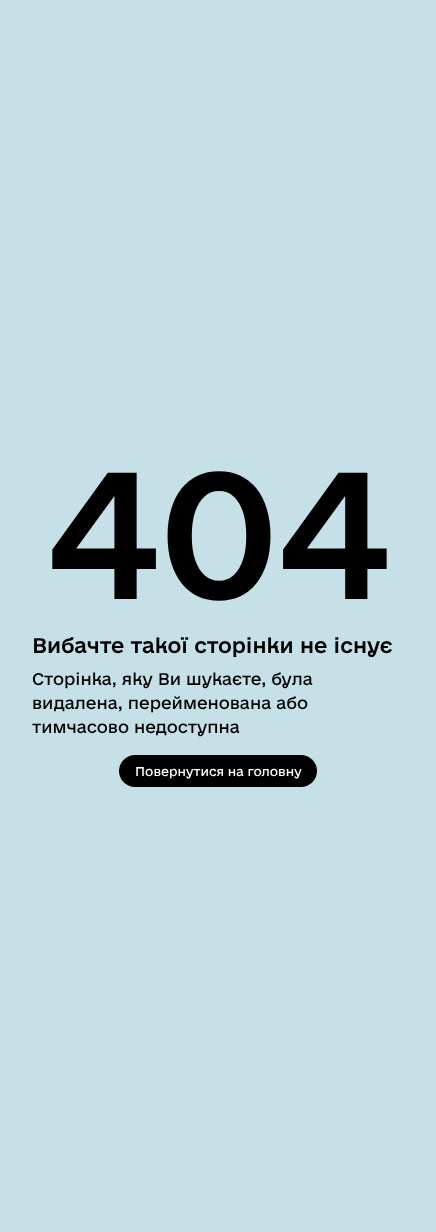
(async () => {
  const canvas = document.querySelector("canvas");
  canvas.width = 436;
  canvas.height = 1232;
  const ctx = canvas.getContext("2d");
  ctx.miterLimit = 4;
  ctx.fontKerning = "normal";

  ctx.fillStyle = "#c5e1e7";
  ctx.fillRect(0, 0, 436, 1232);
  ctx.fillStyle = "#000000";
  ctx.beginPath();
  ctx.roundRect(119, 755, 198, 32, 16);
  ctx.fill();
  ctx.font = "500 170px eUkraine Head";
  ctx.fillText("404", 47, 599);
  ctx.font = "500 20px eUkraine Head";
  ctx.fillText("Вибачте такої сторінки не існує", 32, 653);
  ctx.font = "16px eUkraine Head";
  for (const [text, x, y] of [
    ["Сторінка, яку Ви шукаєте, була", 32, 685],
    ["видалена, перейменована або", 32, 709],
    ["тимчасово недоступна", 32, 733],
  ]) {
    ctx.fillText(text, x, y);
  }
  ctx.font = "12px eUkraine";
  ctx.fillStyle = "#ffffff";
  ctx.fillText("Повернутися на головну", 135, 776);
})();
